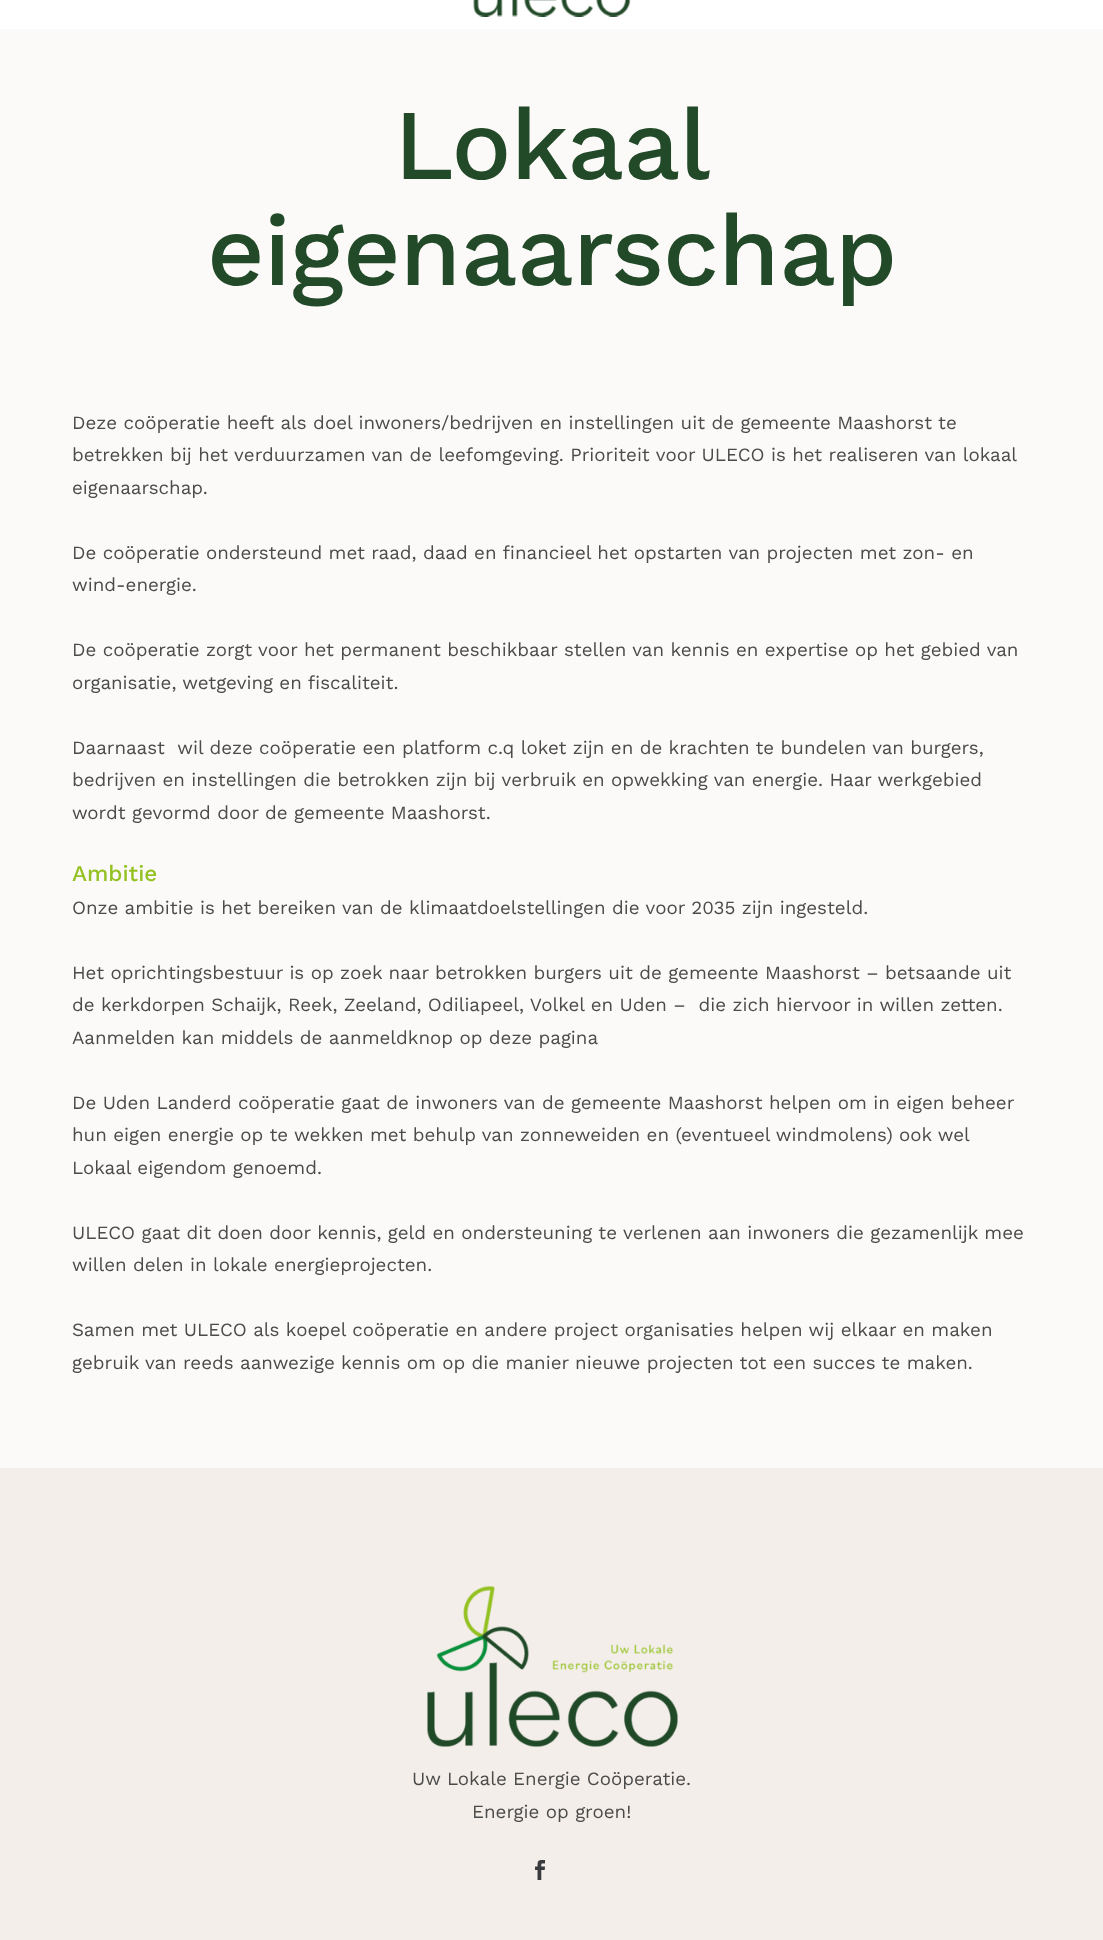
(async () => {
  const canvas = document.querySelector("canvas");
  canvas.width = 1103;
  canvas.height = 1940;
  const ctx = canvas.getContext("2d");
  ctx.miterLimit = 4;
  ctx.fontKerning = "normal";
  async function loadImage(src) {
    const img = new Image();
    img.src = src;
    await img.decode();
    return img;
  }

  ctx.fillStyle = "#fcfaf8";
  ctx.fillRect(0, 0, 1103, 1940);
  ctx.fillStyle = "#ffffff";
  ctx.fillRect(0, 0, 1103, 29);
  ctx.drawImage(await loadImage("img/1.png"), 473, 0, 158, 17);
  ctx.fillStyle = "#f3eee9";
  ctx.fillRect(0, 1468, 1103, 472);
  ctx.drawImage(await loadImage("img/2.png"), 427, 1586, 251, 161);
  ctx.drawImage(await loadImage("img/3.png"), 535, 1860, 10, 20);
  ctx.letterSpacing = "-1.1px";
  ctx.font = "500 100px Work Sans";
  ctx.fillStyle = "#224928";
  ctx.fillText("Lokaal", 394, 179);
  ctx.fillText("eigenaarschap", 207, 285);
  ctx.letterSpacing = "0px";
  ctx.font = "18.75px Work Sans";
  ctx.fillStyle = "#4b4b4b";
  for (const [text, x, y] of [
    ["Deze coöperatie heeft als doel inwoners/bedrijven en instellingen uit de gemeente Maashorst te", 72, 429],
    ["betrekken bij het verduurzamen van de leefomgeving. Prioriteit voor ULECO is het realiseren van lokaal", 72, 461],
    ["eigenaarschap.", 72, 494],
    ["De coöperatie ondersteund met raad, daad en financieel het opstarten van projecten met zon- en", 72, 559],
    ["wind-energie.", 72, 591],
    ["De coöperatie zorgt voor het permanent beschikbaar stellen van kennis en expertise op het gebied van", 72, 656],
    ["organisatie, wetgeving en fiscaliteit.", 72, 689],
    ["Daarnaast  wil deze coöperatie een platform c.q loket zijn en de krachten te bundelen van burgers,", 72, 754],
    ["bedrijven en instellingen die betrokken zijn bij verbruik en opwekking van energie. Haar werkgebied", 72, 786],
    ["wordt gevormd door de gemeente Maashorst.", 72, 819],
  ]) {
    ctx.fillText(text, x, y);
  }
  ctx.font = "500 22.5px Work Sans";
  ctx.fillStyle = "#94c122";
  ctx.fillText("Ambitie", 72, 881);
  ctx.font = "18.75px Work Sans";
  ctx.fillStyle = "#4b4b4b";
  for (const [text, x, y] of [
    ["Onze ambitie is het bereiken van de klimaatdoelstellingen die voor 2035 zijn ingesteld.", 72, 914],
    ["Het oprichtingsbestuur is op zoek naar betrokken burgers uit de gemeente Maashorst – betsaande uit", 72, 979],
    ["de kerkdorpen Schaijk, Reek, Zeeland, Odiliapeel, Volkel en Uden –  die zich hiervoor in willen zetten.", 72, 1011],
    ["Aanmelden kan middels de aanmeldknop op deze pagina", 72, 1044],
    ["De Uden Landerd coöperatie gaat de inwoners van de gemeente Maashorst helpen om in eigen beheer", 72, 1109],
    ["hun eigen energie op te wekken met behulp van zonneweiden en (eventueel windmolens) ook wel", 72, 1141],
    ["Lokaal eigendom genoemd.", 72, 1174],
    ["ULECO gaat dit doen door kennis, geld en ondersteuning te verlenen aan inwoners die gezamenlijk mee", 72, 1239],
    ["willen delen in lokale energieprojecten.", 72, 1271],
    ["Samen met ULECO als koepel coöperatie en andere project organisaties helpen wij elkaar en maken", 72, 1336],
    ["gebruik van reeds aanwezige kennis om op die manier nieuwe projecten tot een succes te maken.", 72, 1369],
    ["Uw Lokale Energie Coöperatie.", 412, 1785],
    ["Energie op groen!", 472, 1818],
  ]) {
    ctx.fillText(text, x, y);
  }
})();
